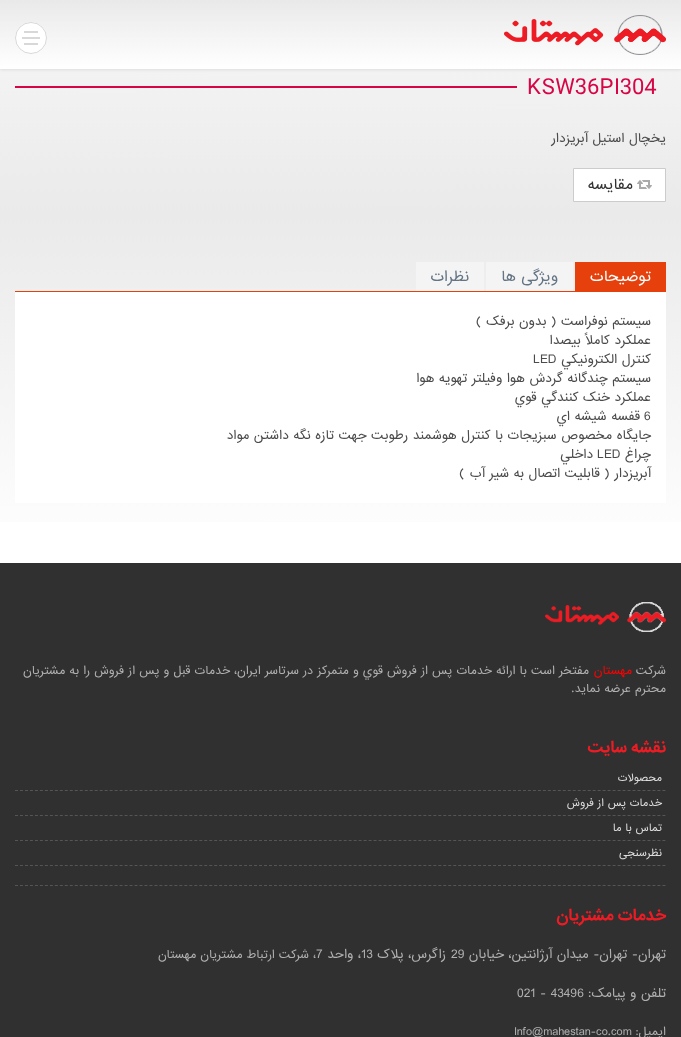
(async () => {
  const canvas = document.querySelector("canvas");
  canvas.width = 681;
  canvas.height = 1037;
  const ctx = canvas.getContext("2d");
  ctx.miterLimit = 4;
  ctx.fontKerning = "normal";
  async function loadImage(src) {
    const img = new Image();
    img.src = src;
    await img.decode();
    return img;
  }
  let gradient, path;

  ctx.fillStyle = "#ffffff";
  ctx.fillRect(0, 0, 681, 1037);
  gradient = ctx.createLinearGradient(340, -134, 341, 563);
  gradient.addColorStop(0, "#ffffff");
  gradient.addColorStop(0.5, "#eaeaea");
  gradient.addColorStop(1, "#ffffff");
  ctx.fillStyle = gradient;
  ctx.fillRect(0, 69, 681, 453);
  ctx.fillStyle = "#dddddd";
  ctx.filter = "blur(1.5px)";
  ctx.beginPath();
  ctx.rect(0, 1, 681, 69);
  ctx.fill();
  ctx.filter = "none";
  gradient = ctx.createLinearGradient(341, 0, 341, 69);
  gradient.addColorStop(0, "#e9e9e9");
  gradient.addColorStop(1, "#ffffff");
  ctx.fillStyle = gradient;
  ctx.fillRect(0, 0, 681, 69);
  ctx.drawImage(await loadImage("img/1.png"), 504, 15, 162, 40);
  ctx.fillStyle = "#ffffff";
  ctx.beginPath();
  ctx.arc(31, 38, 16, 0, Math.PI * 2);
  ctx.fill();
  ctx.drawImage(await loadImage("img/2.png"), 22, 31, 18, 14);
  ctx.beginPath();
  ctx.arc(31, 38, 15.5, 0, Math.PI * 2);
  ctx.strokeStyle = "#d8d8d8";
  ctx.stroke();
  ctx.fillStyle = "#d80546";
  ctx.fillRect(15, 86, 502, 2);
  ctx.fillStyle = "#ffffff";
  ctx.beginPath();
  ctx.rect(573.5, 168.5, 92, 33);
  ctx.fill();
  ctx.strokeStyle = "#cccccc";
  ctx.stroke();
  ctx.drawImage(await loadImage("img/3.png"), 637, 180, 15, 9);
  for (const [x, y, w, h, color] of [
    [15, 291, 651, 1, "#e6400c"],
    [575, 262, 91, 29, "#e6400c"],
    [486, 262, 87, 29, "#f4f4f4"],
    [416, 262, 68, 29, "#f4f4f4"],
    [15, 292, 651, 211, "#ffffff"],
    [0, 563, 681, 474, "#313030"],
  ]) {
    ctx.fillStyle = color;
    ctx.fillRect(x, y, w, h);
  }
  ctx.drawImage(await loadImage("img/4.png"), 545, 602, 121, 30);
  path = new Path2D("M15 790.5H666");
  ctx.strokeStyle = "#555555";
  ctx.setLineDash([3, 1.98]);
  ctx.stroke(path);
  path = new Path2D("M15 815.5H666");
  ctx.stroke(path);
  path = new Path2D("M15 840.5H666");
  ctx.stroke(path);
  path = new Path2D("M15 865.5H666");
  ctx.stroke(path);
  path = new Path2D("M15 885.5H666");
  ctx.stroke(path);
  ctx.font = "300 22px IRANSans";
  ctx.fillStyle = "#d80546";
  ctx.fillText("KSW36PI304", 527, 94);
  ctx.direction = "rtl";
  ctx.font = "12px IRANSans";
  ctx.fillStyle = "#4b4b4b";
  ctx.fillText("يخچال استيل آبريزدار", 666, 142);
  ctx.font = "14px IRANSans";
  ctx.fillStyle = "#333333";
  ctx.fillText("مقایسه", 633, 189);
  ctx.fillStyle = "#ffffff";
  ctx.fillText("توضیحات", 651, 281);
  ctx.fillStyle = "#647484";
  ctx.fillText("ویژگی ها", 558, 281);
  ctx.fillText("نظرات", 469, 281);
  ctx.font = "12px IRANSans";
  ctx.fillStyle = "#4b4b4b";
  for (const [text, x, y] of [
    ["سيستم نوفراست ( بدون برفک )", 651, 325],
    ["عملکرد کاملاً بيصدا", 651, 344],
    ["کنترل الکترونيکي", 651, 363],
  ]) {
    ctx.fillText(text, x, y);
  }
  ctx.direction = "ltr";
  ctx.fillText("LED", 533, 363);
  ctx.direction = "rtl";
  ctx.fillText("سيستم چندگانه گردش هوا وفيلتر تهويه هوا", 651, 382);
  ctx.fillText("عملکرد خنک کنندگي قوي", 651, 401);
  ctx.direction = "ltr";
  ctx.fillText("6", 644, 420);
  ctx.direction = "rtl";
  for (const [text, x, y] of [
    ["قفسه شيشه اي", 640, 420],
    ["جايگاه مخصوص سبزيجات با کنترل هوشمند رطوبت جهت تازه نگه داشتن مواد", 651, 439],
    ["چراغ", 651, 458],
  ]) {
    ctx.fillText(text, x, y);
  }
  ctx.direction = "ltr";
  ctx.fillText("LED", 597, 458);
  ctx.direction = "rtl";
  ctx.fillText("داخلي", 593, 458);
  ctx.fillText("آبريزدار ( قابليت اتصال به شير آب )", 651, 477);
  ctx.font = "11px IRANSans";
  ctx.fillStyle = "#b0b0b0";
  ctx.fillText("شرکت", 666, 674);
  ctx.fillStyle = "#ff0000";
  ctx.fillText("مهستان", 632, 674);
  ctx.fillStyle = "#b0b0b0";
  ctx.fillText("مفتخر است با ارائه خدمات پس از فروش قوي و متمرکز در سرتاسر ايران، خدمات قبل و پس از فروش را به مشتريان", 589, 674);
  ctx.fillText("محترم عرضه نمايد.", 666, 692);
  ctx.font = "bold 15px IRANSans";
  ctx.fillStyle = "#ed1c24";
  ctx.fillText("نقشه سایت", 666, 752);
  ctx.font = "10px IRANSans";
  ctx.fillStyle = "#dddddd";
  for (const [text, x, y] of [
    ["محصولات", 662, 781],
    ["خدمات پس از فروش", 662, 806],
    ["تماس با ما", 662, 831],
    ["نظرسنجی", 662, 856],
  ]) {
    ctx.fillText(text, x, y);
  }
  ctx.font = "bold 15px IRANSans";
  ctx.fillStyle = "#ed1c24";
  ctx.fillText("خدمات مشتریان", 666, 920);
  ctx.font = "12px IRANSans";
  ctx.fillStyle = "#b0b0b0";
  ctx.fillText("تهران- تهران- میدان آرژانتین، خیابان", 666, 958);
  ctx.direction = "ltr";
  ctx.fillText("29", 451, 958);
  ctx.direction = "rtl";
  ctx.fillText("زاگرس، پلاک", 446, 958);
  ctx.direction = "ltr";
  ctx.fillText("13", 361, 958);
  ctx.direction = "rtl";
  ctx.fillText("، واحد", 361, 958);
  ctx.direction = "ltr";
  ctx.fillText("7", 316, 958);
  ctx.direction = "rtl";
  ctx.font = "11px IRANSans";
  ctx.fillText("، شرکت ارتباط مشتریان مهستان", 316, 958);
  ctx.font = "12px IRANSans";
  ctx.fillText("تلفن و پیامک:", 666, 997);
  ctx.direction = "ltr";
  ctx.fillText("- 43496", 540, 997);
  ctx.fillText("021", 517, 997);
  ctx.direction = "rtl";
  ctx.font = "11px IRANSans";
  ctx.fillText("ایمیل:", 666, 1035);
  ctx.direction = "ltr";
  ctx.fillText("Info@mahestan-co.com", 514, 1035);
})();
